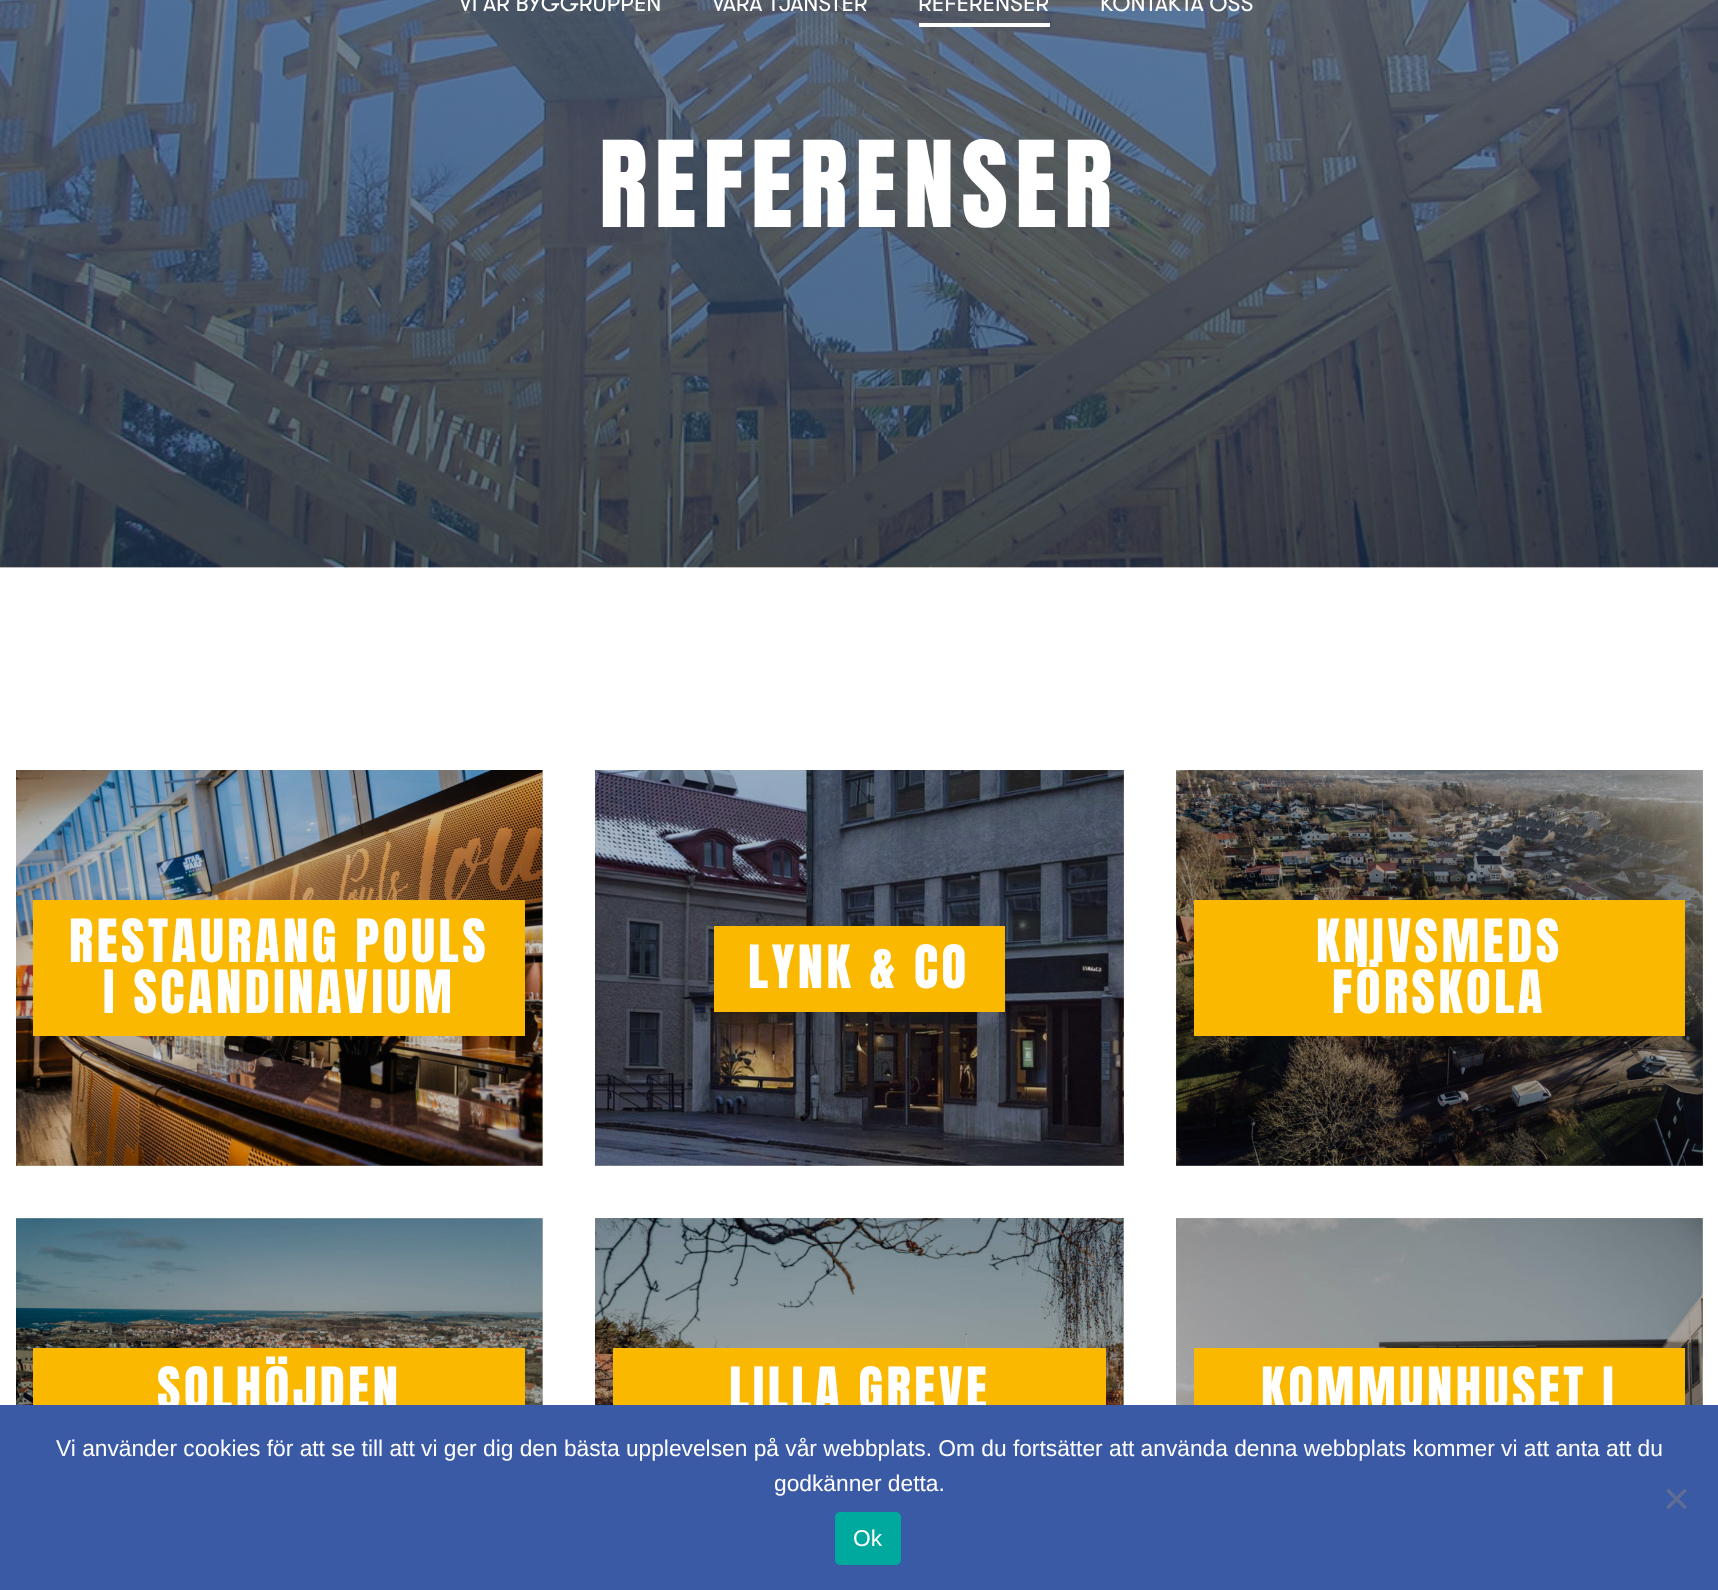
(async () => {
  const canvas = document.querySelector("canvas");
  canvas.width = 1718;
  canvas.height = 1590;
  const ctx = canvas.getContext("2d");
  ctx.miterLimit = 4;
  ctx.fontKerning = "normal";
  async function loadImage(src) {
    const img = new Image();
    img.src = src;
    await img.decode();
    return img;
  }
  let path;

  ctx.fillStyle = "#ffffff";
  ctx.fillRect(0, 0, 1718, 1590);
  for (const [x, y, w, h, color] of [
    [595, 1218, 529, 187, "#cccccc"],
    [16, 1218, 527, 187, "#cccccc"],
    [595, 770, 529, 396, "#cccccc"],
    [16, 770, 527, 396, "#cccccc"],
  ]) {
    ctx.fillStyle = color;
    ctx.fillRect(x, y, w, h);
  }
  ctx.drawImage(await loadImage("img/3.png"), 0, 0, 1718, 568);
  ctx.drawImage(await loadImage("img/1.png"), 631, 5, 12, 7);
  ctx.drawImage(await loadImage("img/2.png"), 837, 5, 12, 7);
  ctx.fillStyle = "#ffffff";
  ctx.fillRect(919, 23, 131, 4);
  ctx.drawImage(await loadImage("img/4.png"), 16, 770, 527, 396);
  ctx.fillStyle = "#fbb800";
  ctx.fillRect(33, 900, 492, 136);
  ctx.drawImage(await loadImage("img/5.png"), 595, 770, 529, 396);
  ctx.fillRect(714, 926, 291, 86);
  ctx.drawImage(await loadImage("img/6.png"), 1176, 770, 527, 396);
  ctx.fillRect(1194, 900, 491, 136);
  ctx.drawImage(await loadImage("img/7.png"), 16, 1218, 527, 187);
  ctx.fillRect(33, 1348, 492, 57);
  ctx.drawImage(await loadImage("img/8.png"), 595, 1218, 529, 187);
  ctx.fillRect(613, 1348, 493, 57);
  ctx.drawImage(await loadImage("img/9.png"), 1176, 1218, 527, 187);
  ctx.fillStyle = "rgba(0, 0, 0, 0.2)";
  ctx.fillRect(1176, 1218, 527, 187);
  ctx.fillStyle = "#fbb800";
  ctx.fillRect(1194, 1348, 491, 57);
  ctx.font = "22.75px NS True";
  ctx.fillStyle = "#ffffff";
  for (const [text, x, y] of [
    ["VI ÄR BYGGRUPPEN", 459, 11],
    ["VÅRA TJÄNSTER", 712, 11],
    ["REFERENSER", 918, 11],
    ["KONTAKTA OSS", 1100, 11],
  ]) {
    ctx.fillText(text, x, y);
  }
  ctx.letterSpacing = "7px";
  ctx.font = "101.5px Anton";
  ctx.fillText("REFERENSER", 599, 227);
  ctx.letterSpacing = "3.5px";
  ctx.font = "50.75px Anton";
  for (const [text, x, y] of [
    ["RESTAURANG POULS", 69, 962],
    ["I SCANDINAVIUM", 103, 1013],
    ["LYNK & CO", 748, 988],
    ["KNIVSMEDS", 1316, 962],
    ["FÖRSKOLA", 1332, 1013],
    ["SOLHÖJDEN", 157, 1410],
    ["LILLA GREVE", 729, 1410],
    ["KOMMUNHUSET I", 1261, 1410],
  ]) {
    ctx.fillText(text, x, y);
  }
  ctx.fillStyle = "#3b5aa6";
  ctx.fillRect(0, 1405, 1718, 185);
  ctx.letterSpacing = "0px";
  ctx.font = "22.75px Liberation Sans";
  ctx.fillStyle = "#ffffff";
  ctx.fillText("Vi använder cookies för att se till att vi ger dig den bästa upplevelsen på vår webbplats. Om du fortsätter att använda denna webbplats kommer vi att anta att du", 56, 1456);
  ctx.fillText("godkänner detta.", 774, 1491);
  ctx.fillStyle = "#5e6d93";
  path = new Path2D("M1684.5 1488.5L1687 1491L1668.5 1509.5L1666 1507Z");
  ctx.fill(path);
  path = new Path2D("M1666 1491L1668.5 1488.5L1687 1507L1684.5 1509.5Z");
  ctx.fill(path);
  ctx.fillStyle = "#00a99d";
  ctx.beginPath();
  ctx.roundRect(835, 1512, 66, 53, 5);
  ctx.fill();
  ctx.fillStyle = "#ffffff";
  ctx.fillText("Ok", 853, 1546);
})();
